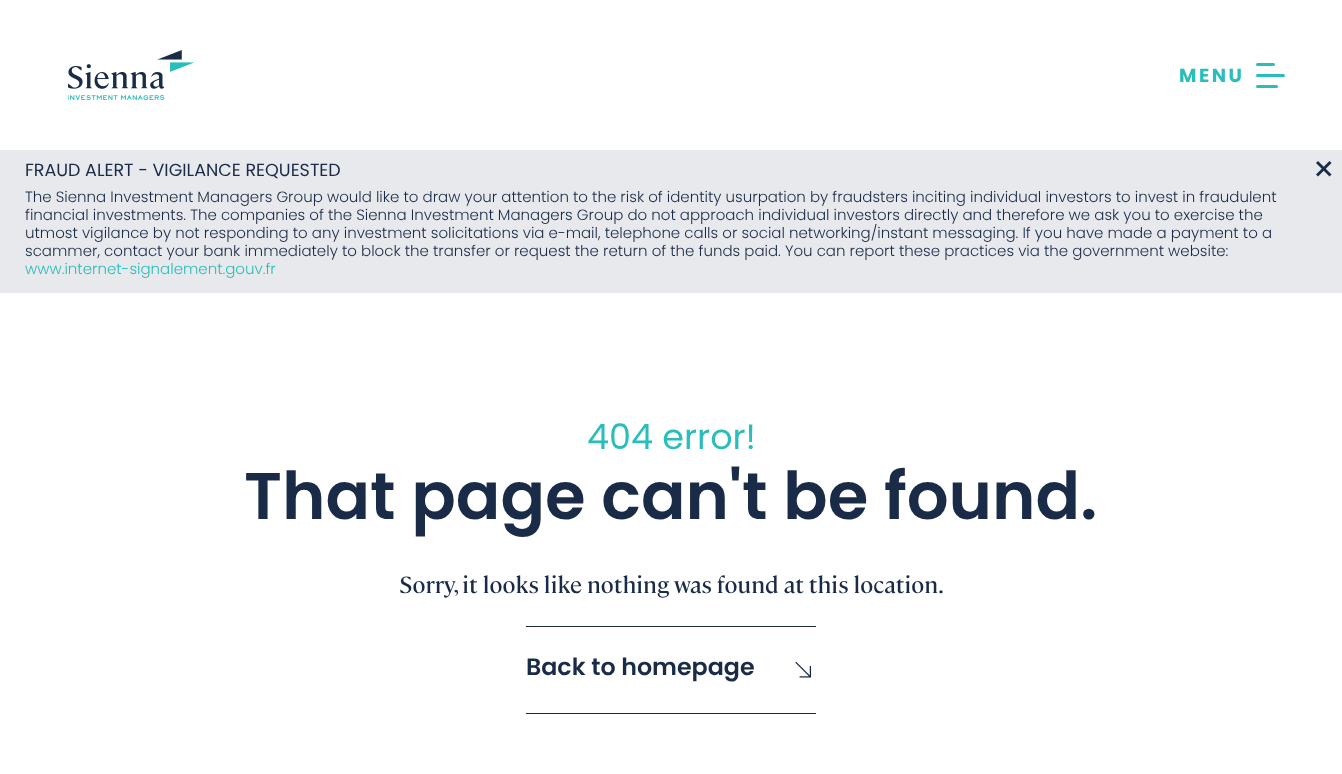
(async () => {
  const canvas = document.querySelector("canvas");
  canvas.width = 1342;
  canvas.height = 774;
  const ctx = canvas.getContext("2d");
  ctx.miterLimit = 4;
  ctx.fontKerning = "normal";
  async function loadImage(src) {
    const img = new Image();
    img.src = src;
    await img.decode();
    return img;
  }
  let path;

  ctx.fillStyle = "#ffffff";
  ctx.fillRect(0, 0, 1342, 774);
  ctx.drawImage(await loadImage("img/1.png"), 68, 50, 126, 50);
  ctx.fillStyle = "#2abdbb";
  ctx.beginPath();
  ctx.roundRect(1256, 74, 29, 3, 1.5);
  ctx.fill();
  ctx.beginPath();
  ctx.roundRect(1256, 63, 19, 3, 1.5);
  ctx.fill();
  ctx.beginPath();
  ctx.roundRect(1256, 85, 22, 3, 1.5);
  ctx.fill();
  ctx.fillStyle = "#e8e9ec";
  ctx.fillRect(0, 150, 1342, 143);
  ctx.fillStyle = "#1a2b48";
  path = new Path2D("M1329.5 161L1331.5 163L1318 176.5L1316 174.5Z");
  ctx.fill(path);
  path = new Path2D("M1316 163L1318 161L1331.5 174.5L1329.5 176.5Z");
  ctx.fill(path);
  ctx.fillRect(526, 626, 290, 1);
  ctx.fillRect(526, 713, 290, 1);
  ctx.drawImage(await loadImage("img/2.png"), 795, 661, 17, 17);
  ctx.letterSpacing = "2.5px";
  ctx.font = "bold 19px Poppins";
  ctx.fillStyle = "#2abdbb";
  ctx.fillText("MENU", 1179, 82);
  ctx.letterSpacing = "0px";
  ctx.font = "17.5px Poppins";
  ctx.fillStyle = "#1a2b48";
  ctx.fillText("FRAUD ALERT - VIGILANCE REQUESTED", 25, 176);
  ctx.font = "300 15px Poppins";
  for (const [text, x, y] of [
    ["The Sienna Investment Managers Group would like to draw your attention to the risk of identity usurpation by fraudsters inciting individual investors to invest in fraudulent", 25, 202],
    ["financial investments. The companies of the Sienna Investment Managers Group do not approach individual investors directly and therefore we ask you to exercise the", 25, 220],
    ["utmost vigilance by not responding to any investment solicitations via e-mail, telephone calls or social networking/instant messaging. If you have made a payment to a", 25, 238],
    ["scammer, contact your bank immediately to block the transfer or request the return of the funds paid. You can report these practices via the government website:", 25, 256],
  ]) {
    ctx.fillText(text, x, y);
  }
  ctx.fillStyle = "#2abdbb";
  ctx.fillText("www.internet-signalement.gouv.fr", 25, 274);
  ctx.font = "35px Poppins";
  ctx.fillText("404 error!", 587, 449);
  ctx.font = "600 65.8px Poppins";
  ctx.fillStyle = "#1a2b48";
  ctx.fillText("That page can't be found.", 244, 519);
  ctx.font = "500 23.1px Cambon";
  ctx.fillText("Sorry, it looks like nothing was found at this location.", 399, 593);
  ctx.font = "600 23.75px Poppins";
  ctx.fillText("Back to homepage", 526, 675);
})();
